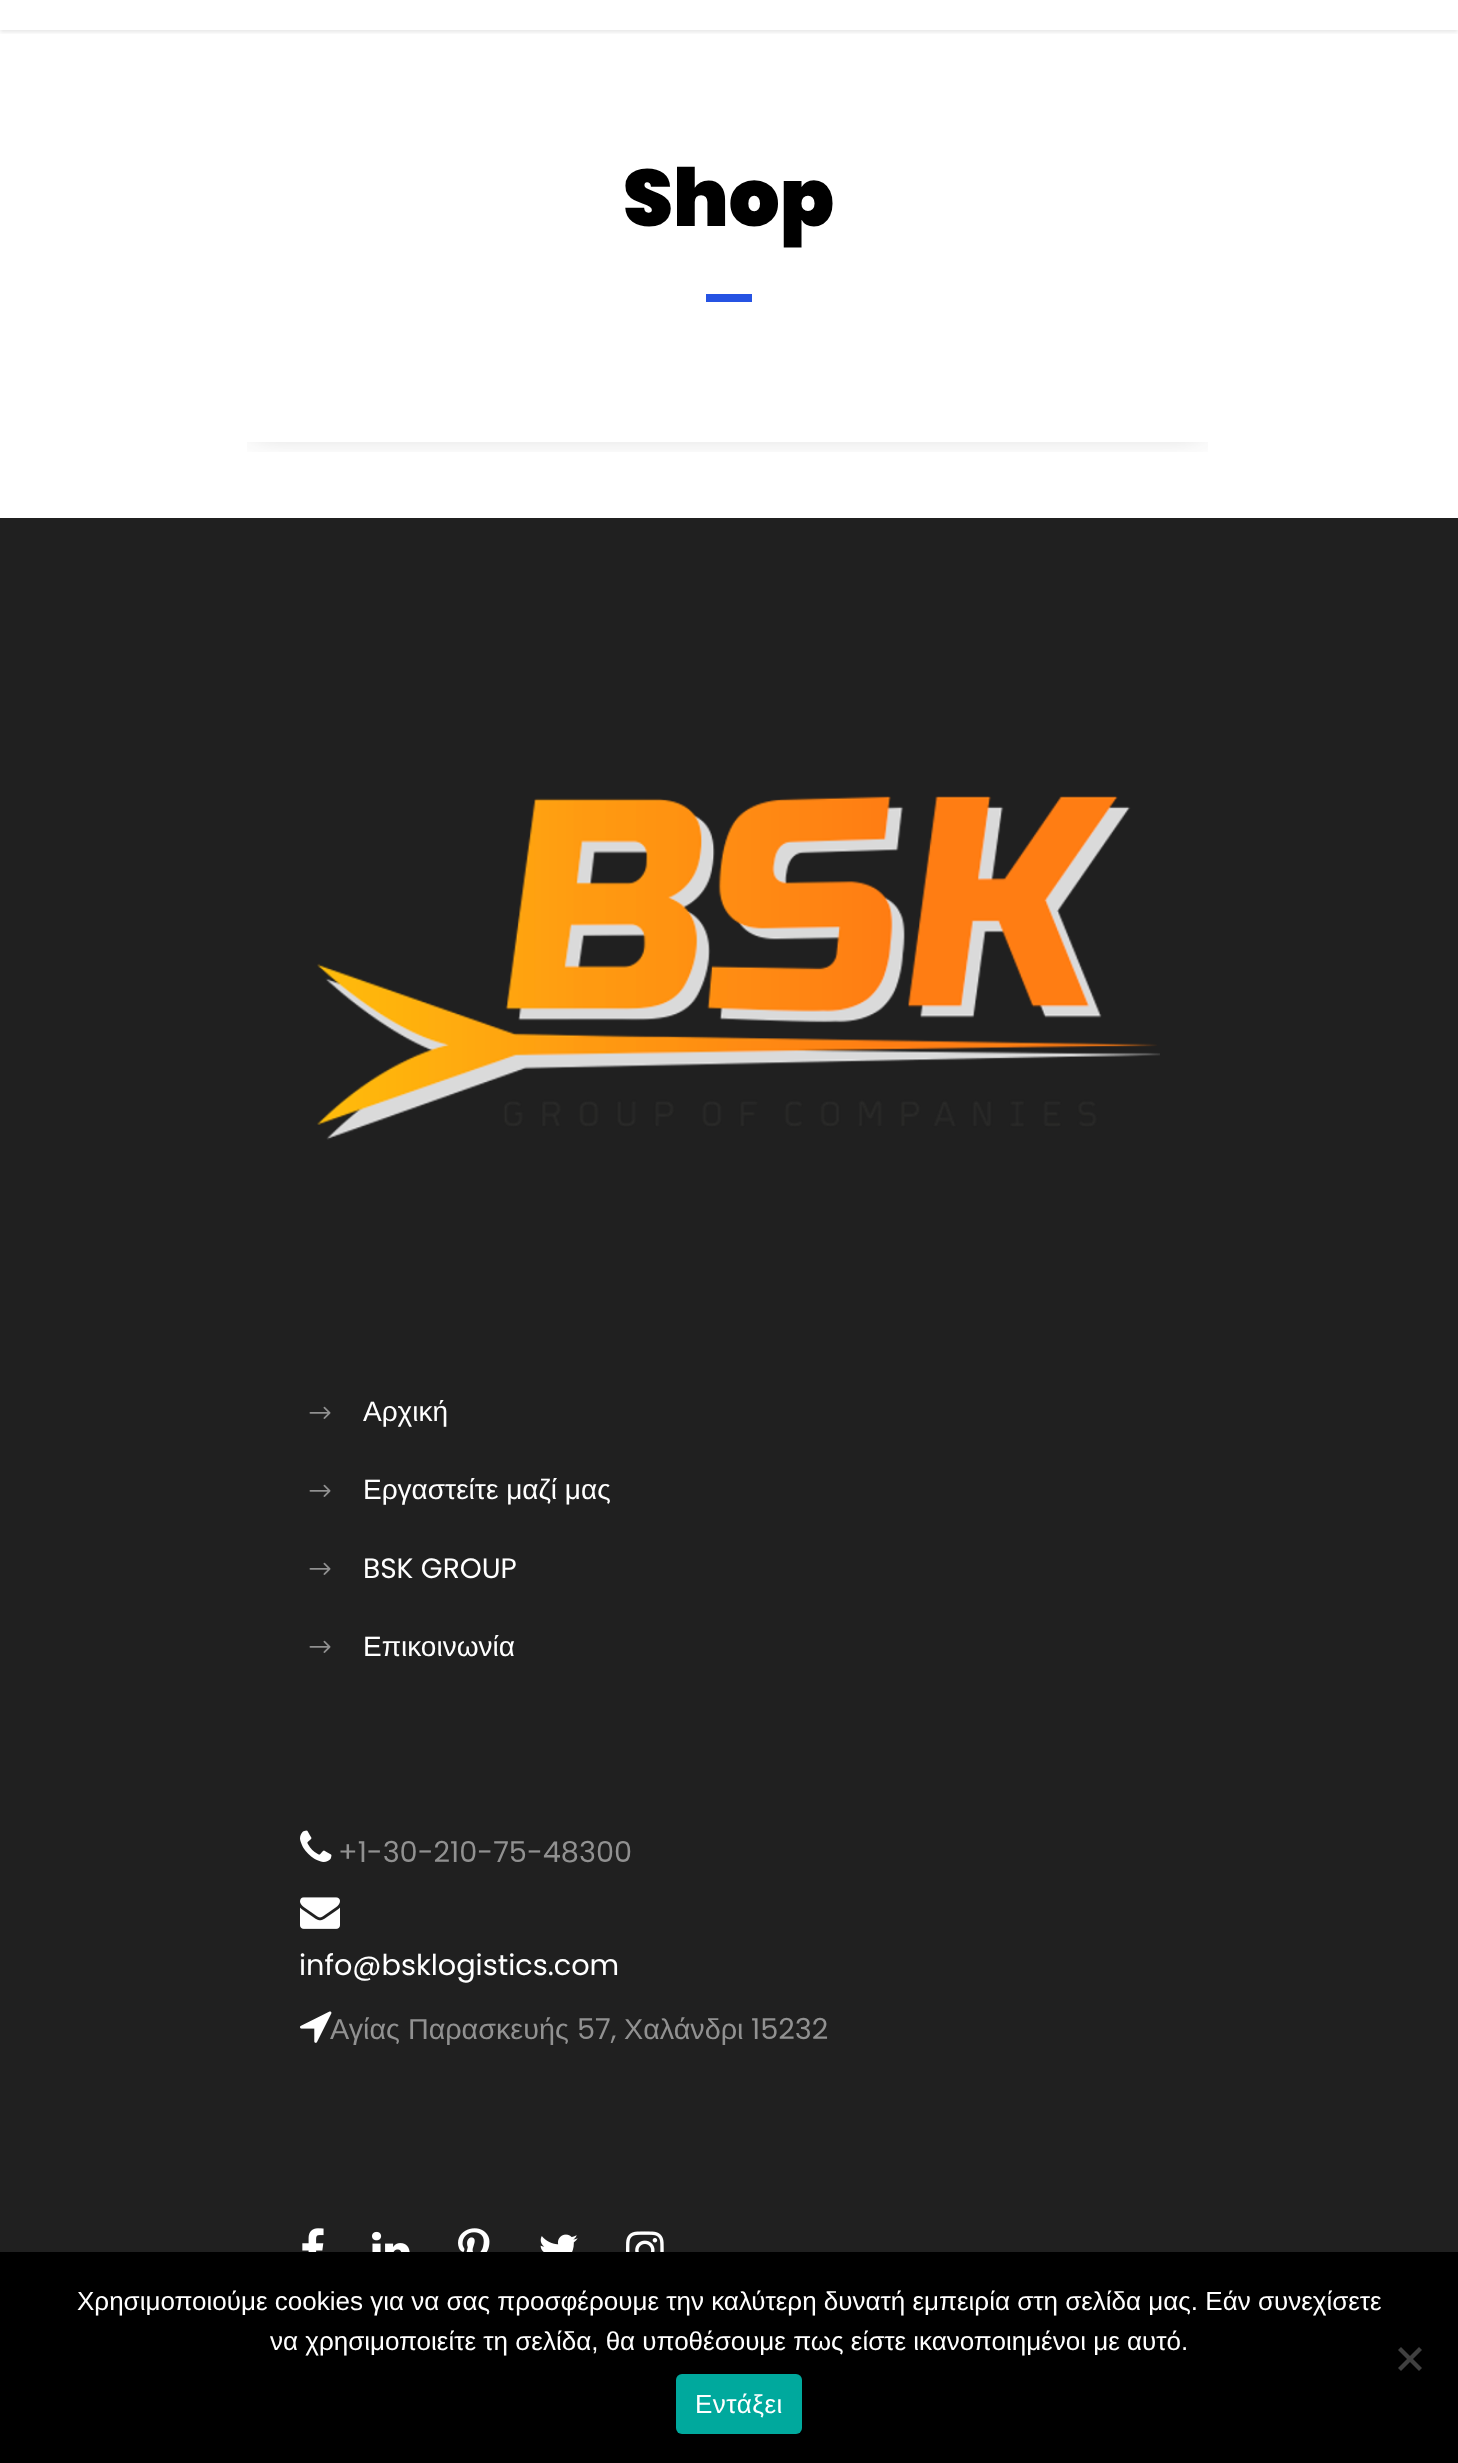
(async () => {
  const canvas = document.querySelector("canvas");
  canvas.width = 1458;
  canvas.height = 2463;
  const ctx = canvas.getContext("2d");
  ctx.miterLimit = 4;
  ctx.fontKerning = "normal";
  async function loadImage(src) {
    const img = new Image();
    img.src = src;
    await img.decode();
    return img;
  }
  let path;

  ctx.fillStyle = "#ffffff";
  ctx.fillRect(0, 0, 1458, 2463);
  ctx.save();
  ctx.beginPath();
  ctx.rect(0, 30, 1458, 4);
  ctx.clip();
  ctx.fillStyle = "rgba(0, 0, 0, 0.1)";
  ctx.filter = "blur(2px)";
  ctx.beginPath();
  ctx.rect(0, -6, 1458, 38);
  ctx.fill();
  ctx.filter = "none";
  ctx.restore();
  ctx.fillStyle = "#2653e3";
  ctx.fillRect(706, 294, 46, 8);
  ctx.drawImage(await loadImage("img/1.png"), 247, 442, 961, 10);
  ctx.fillStyle = "#202020";
  ctx.fillRect(0, 518, 1458, 1734);
  ctx.drawImage(await loadImage("img/2.png"), 317, 796, 843, 344);
  ctx.drawImage(await loadImage("img/3.png"), 309, 1406, 22, 13);
  ctx.drawImage(await loadImage("img/3.png"), 309, 1484, 22, 13);
  ctx.drawImage(await loadImage("img/3.png"), 309, 1562, 22, 13);
  ctx.drawImage(await loadImage("img/3.png"), 309, 1640, 22, 13);
  ctx.drawImage(await loadImage("img/4.png"), 300, 1830, 32, 32);
  ctx.drawImage(await loadImage("img/5.png"), 300, 1897, 40, 32);
  ctx.drawImage(await loadImage("img/6.png"), 300, 2011, 32, 32);
  ctx.drawImage(await loadImage("img/7.png"), 302, 2228, 22, 24);
  ctx.drawImage(await loadImage("img/8.png"), 372, 2231, 38, 21);
  ctx.drawImage(await loadImage("img/9.png"), 458, 2228, 32, 24);
  ctx.drawImage(await loadImage("img/10.png"), 540, 2234, 38, 18);
  ctx.drawImage(await loadImage("img/11.png"), 626, 2231, 38, 21);
  ctx.fillStyle = "#000000";
  ctx.fillRect(0, 2252, 1458, 211);
  ctx.fillStyle = "#404040";
  path = new Path2D("M1419 2347L1422 2350L1401 2371L1398 2368Z");
  ctx.fill(path);
  path = new Path2D("M1398 2350L1401 2347L1422 2368L1419 2371Z");
  ctx.fill(path);
  ctx.fillStyle = "#00a99d";
  ctx.beginPath();
  ctx.roundRect(676, 2374, 126, 60, 6);
  ctx.fill();
  ctx.font = "900 80px Poppins";
  ctx.fillStyle = "#000000";
  ctx.fillText("Shop", 623, 226);
  ctx.font = "28px Liberation Sans";
  ctx.fillStyle = "#ffffff";
  ctx.fillText("Αρχική", 363, 1421);
  ctx.fillText("Εργαστείτε μαζί μας", 363, 1499);
  ctx.font = "28px Poppins";
  ctx.fillText("BSK GROUP", 363, 1578);
  ctx.font = "28px Liberation Sans";
  ctx.fillText("Επικοινωνία", 363, 1656);
  ctx.font = "28.75px Poppins";
  ctx.fillStyle = "#919191";
  ctx.fillText("+1-30-210-75-48300", 338, 1862);
  ctx.fillStyle = "#ffffff";
  ctx.fillText("info@bsklogistics.com", 299, 1975);
  ctx.font = "28.75px Liberation Sans";
  ctx.fillStyle = "#919191";
  ctx.fillText("Αγίας Παρασκευής", 330, 2039);
  ctx.font = "28.75px Poppins";
  ctx.fillText("57,", 577, 2039);
  ctx.font = "28.75px Liberation Sans";
  ctx.fillText("Χαλάνδρι", 624, 2039);
  ctx.font = "28.75px Poppins";
  ctx.fillText("15232", 751, 2039);
  ctx.font = "26px Liberation Sans";
  ctx.fillStyle = "#ffffff";
  ctx.fillText("Χρησιμοποιούμε cookies για να σας προσφέρουμε την καλύτερη δυνατή εμπειρία στη σελίδα μας. Εάν συνεχίσετε", 77, 2310);
  ctx.fillText("να χρησιμοποιείτε τη σελίδα, θα υποθέσουμε πως είστε ικανοποιημένοι με αυτό.", 270, 2350);
  ctx.letterSpacing = "0.5px";
  ctx.fillText("Εντάξει", 695, 2413);
})();
